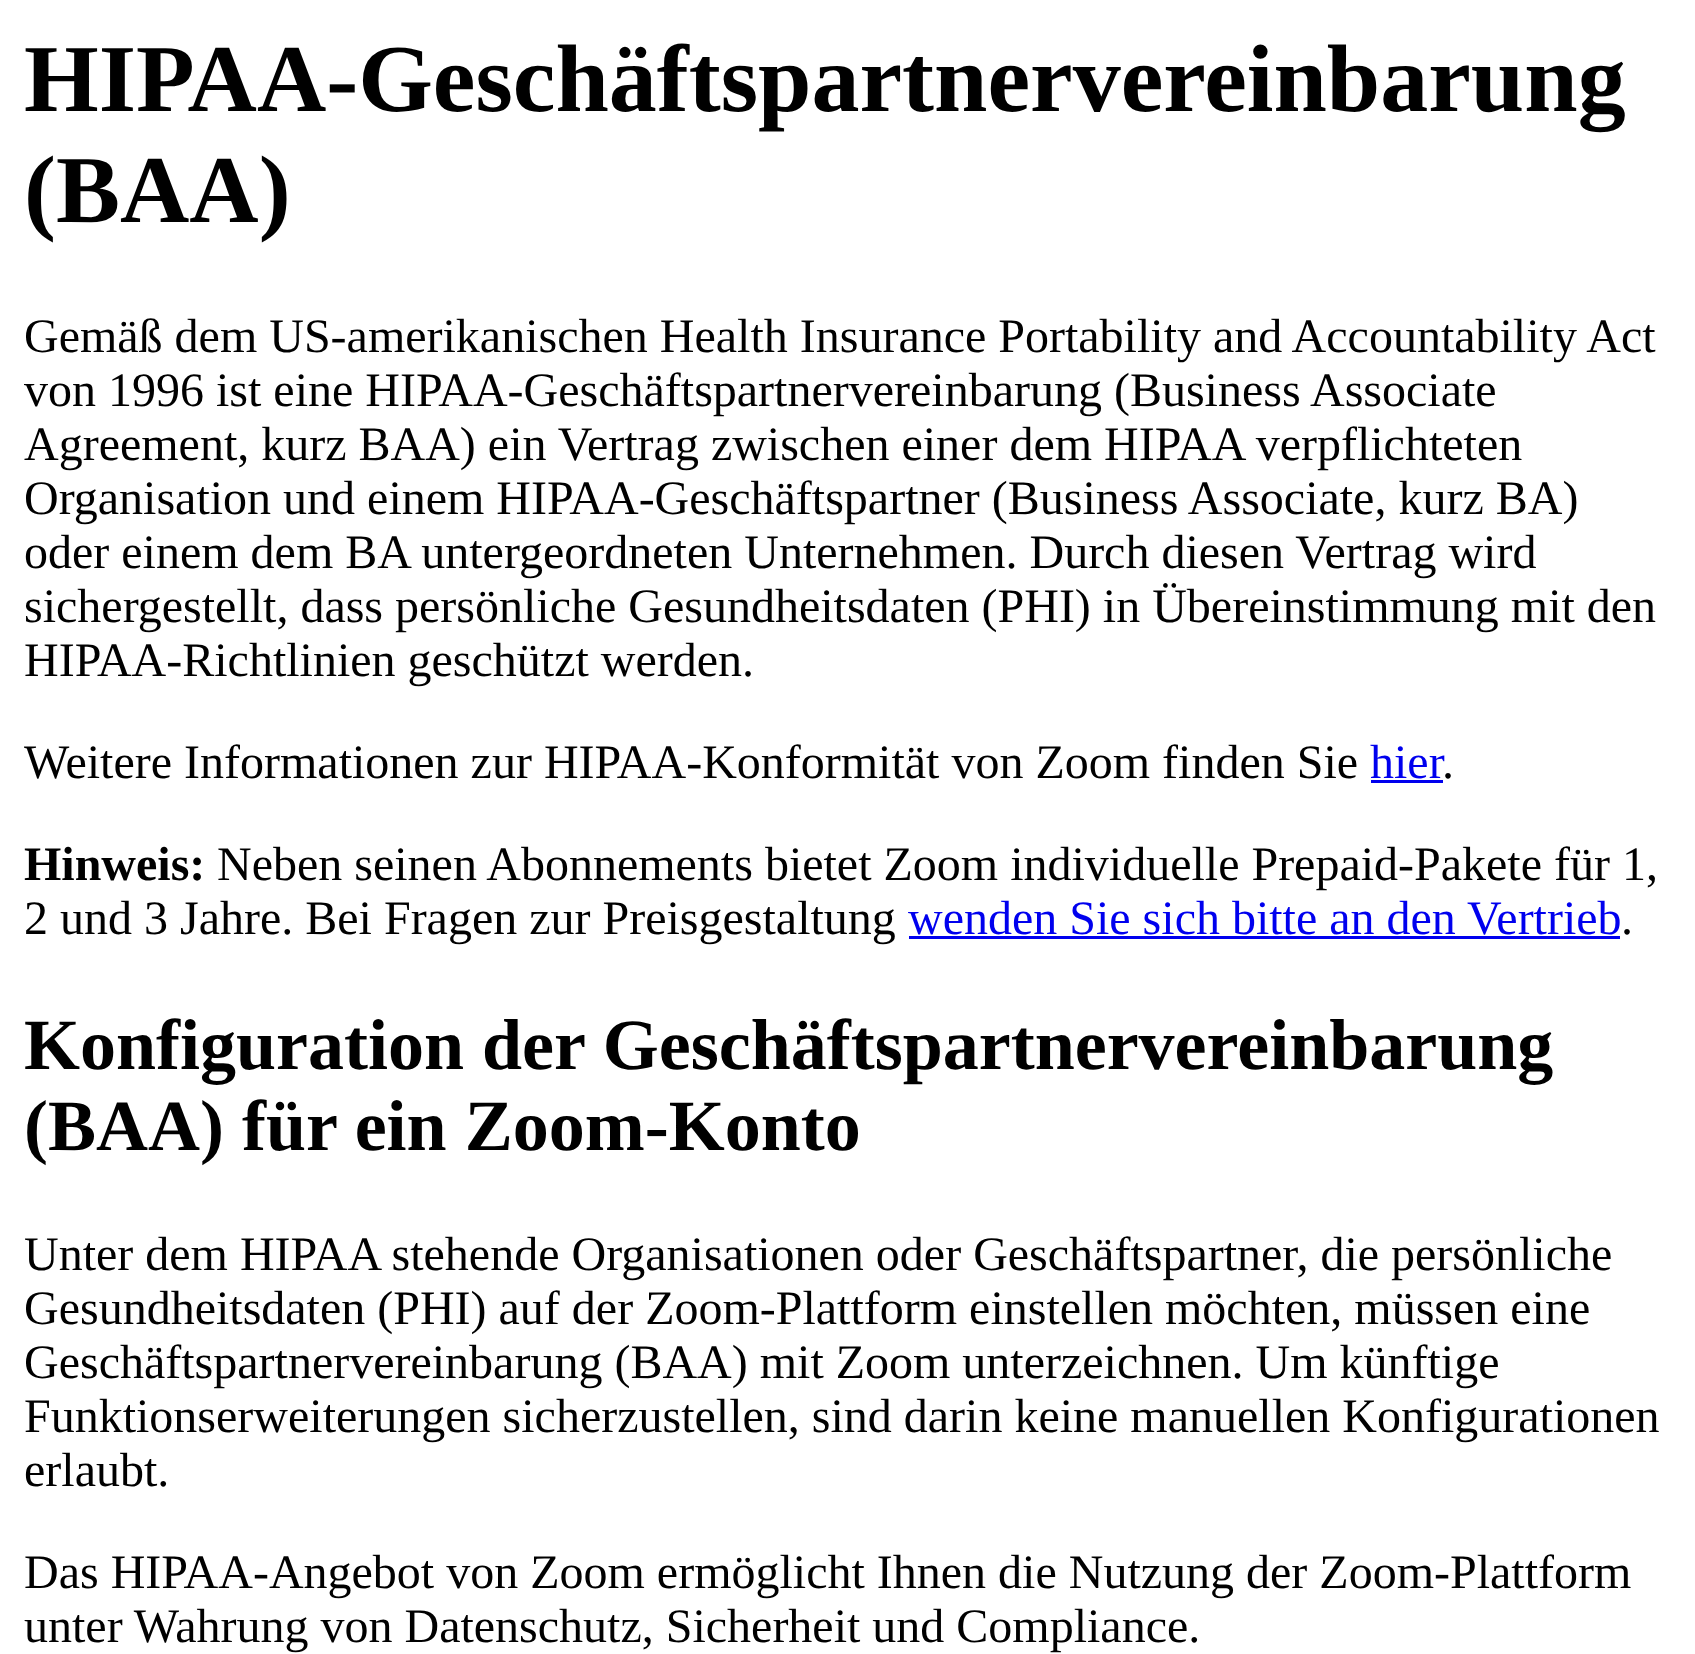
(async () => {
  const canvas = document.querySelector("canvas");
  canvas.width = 1695;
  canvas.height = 1654;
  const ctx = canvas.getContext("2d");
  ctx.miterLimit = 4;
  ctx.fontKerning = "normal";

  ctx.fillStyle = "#ffffff";
  ctx.fillRect(0, 0, 1695, 1654);
  ctx.fillStyle = "#0000ee";
  ctx.fillRect(1371, 780, 72, 3);
  ctx.fillRect(909, 936, 711, 3);
  ctx.font = "bold 96px Liberation Serif";
  ctx.fillStyle = "#000000";
  ctx.fillText("HIPAA-Geschäftspartnervereinbarung", 24, 111);
  ctx.fillText("(BAA)", 24, 222);
  ctx.font = "48px Liberation Serif";
  for (const [text, x, y] of [
    ["Gemäß dem US-amerikanischen Health Insurance Portability and Accountability Act", 24, 352],
    ["von 1996 ist eine HIPAA-Geschäftspartnervereinbarung (Business Associate", 24, 406],
    ["Agreement, kurz BAA) ein Vertrag zwischen einer dem HIPAA verpflichteten", 24, 460],
    ["Organisation und einem HIPAA-Geschäftspartner (Business Associate, kurz BA)", 24, 514],
    ["oder einem dem BA untergeordneten Unternehmen. Durch diesen Vertrag wird", 24, 568],
    ["sichergestellt, dass persönliche Gesundheitsdaten (PHI) in Übereinstimmung mit den", 24, 622],
    ["HIPAA-Richtlinien geschützt werden.", 24, 676],
    ["Weitere Informationen zur HIPAA-Konformität von Zoom finden Sie", 24, 778],
  ]) {
    ctx.fillText(text, x, y);
  }
  ctx.fillStyle = "#0000ee";
  ctx.fillText("hier", 1370, 778);
  ctx.fillStyle = "#000000";
  ctx.fillText(".", 1442, 778);
  ctx.font = "bold 48px Liberation Serif";
  ctx.fillText("Hinweis:", 24, 880);
  ctx.font = "48px Liberation Serif";
  ctx.fillText("Neben seinen Abonnements bietet Zoom individuelle Prepaid-Pakete für 1,", 217, 880);
  ctx.fillText("2 und 3 Jahre. Bei Fragen zur Preisgestaltung", 24, 934);
  ctx.fillStyle = "#0000ee";
  ctx.fillText("wenden Sie sich bitte an den Vertrieb", 908, 934);
  ctx.fillStyle = "#000000";
  ctx.fillText(".", 1621, 934);
  ctx.font = "bold 72px Liberation Serif";
  ctx.fillText("Konfiguration der Geschäftspartnervereinbarung", 24, 1069);
  ctx.fillText("(BAA) für ein Zoom-Konto", 24, 1150);
  ctx.font = "48px Liberation Serif";
  for (const [text, x, y] of [
    ["Unter dem HIPAA stehende Organisationen oder Geschäftspartner, die persönliche", 24, 1270],
    ["Gesundheitsdaten (PHI) auf der Zoom-Plattform einstellen möchten, müssen eine", 24, 1324],
    ["Geschäftspartnervereinbarung (BAA) mit Zoom unterzeichnen. Um künftige", 24, 1378],
    ["Funktionserweiterungen sicherzustellen, sind darin keine manuellen Konfigurationen", 24, 1432],
    ["erlaubt.", 24, 1486],
    ["Das HIPAA-Angebot von Zoom ermöglicht Ihnen die Nutzung der Zoom-Plattform", 24, 1588],
    ["unter Wahrung von Datenschutz, Sicherheit und Compliance.", 24, 1642],
  ]) {
    ctx.fillText(text, x, y);
  }
})();
